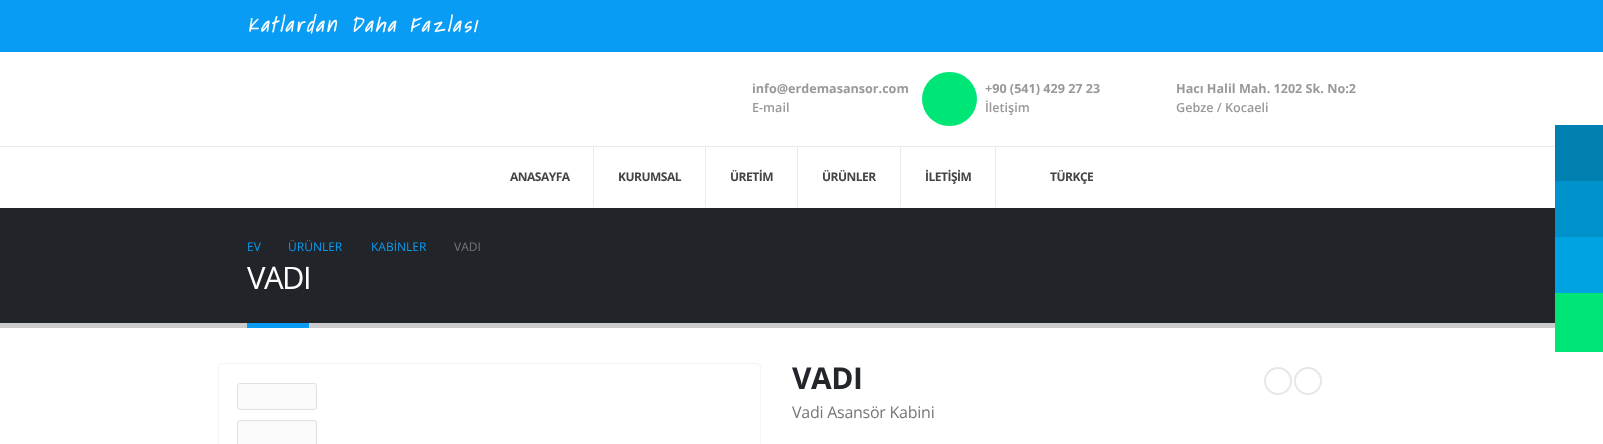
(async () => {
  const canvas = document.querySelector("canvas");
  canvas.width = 1603;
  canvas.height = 444;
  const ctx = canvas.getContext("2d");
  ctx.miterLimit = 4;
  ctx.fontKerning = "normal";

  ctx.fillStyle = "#ffffff";
  ctx.fillRect(0, 0, 1603, 444);
  ctx.fillStyle = "#099cf4";
  ctx.fillRect(0, 0, 1603, 52);
  ctx.fillStyle = "#00e676";
  ctx.beginPath();
  ctx.roundRect(922, 72, 55, 54, 27);
  ctx.fill();
  for (const [x, y, w, h, color] of [
    [0, 146, 1555, 1, "#ebebeb"],
    [593, 147, 1, 60, "#ebebeb"],
    [705, 147, 1, 60, "#ebebeb"],
    [797, 147, 1, 60, "#ebebeb"],
    [900, 147, 1, 60, "#ebebeb"],
    [995, 147, 1, 60, "#ebebeb"],
    [0, 208, 1555, 115, "#212529"],
    [0, 323, 1555, 5, "#cccccc"],
    [247, 323, 62, 5, "#099cf4"],
    [1555, 125, 48, 56, "#0080b0"],
    [1555, 181, 48, 56, "#0092ca"],
    [1555, 237, 48, 56, "#00a3e1"],
    [1555, 293, 48, 59, "#00e676"],
  ]) {
    ctx.fillStyle = color;
    ctx.fillRect(x, y, w, h);
  }
  ctx.beginPath();
  ctx.roundRect(218.5, 363.5, 542, 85, 3.5);
  ctx.strokeStyle = "#f4f4f4";
  ctx.stroke();
  ctx.fillStyle = "#fafafa";
  ctx.beginPath();
  ctx.roundRect(237.5, 383.5, 79, 26, 2.5);
  ctx.fill();
  ctx.strokeStyle = "#e1e1e1";
  ctx.stroke();
  ctx.beginPath();
  ctx.roundRect(237.5, 420.5, 79, 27, 2.5);
  ctx.fill();
  ctx.stroke();
  ctx.beginPath();
  ctx.arc(1278, 381, 13, 0, Math.PI * 2);
  ctx.strokeStyle = "#e7e7e7";
  ctx.lineWidth = 2;
  ctx.stroke();
  ctx.beginPath();
  ctx.arc(1308, 381, 13, 0, Math.PI * 2);
  ctx.stroke();
  ctx.letterSpacing = "3px";
  ctx.font = "italic bold 20px Shadows Into Light";
  ctx.fillStyle = "#ffffff";
  ctx.fillText("Katlardan Daha Fazlası", 247, 32);
  ctx.letterSpacing = "0px";
  ctx.font = "bold 12.6px Open Sans";
  ctx.fillStyle = "#999999";
  ctx.fillText("info@erdemasansor.com", 752, 93);
  ctx.font = "600 12.6px Open Sans";
  ctx.fillText("E-mail", 752, 112);
  ctx.font = "bold 12.6px Open Sans";
  ctx.fillText("+90 (541) 429 27 23", 985, 93);
  ctx.font = "600 12.6px Open Sans";
  ctx.fillText("İletişim", 985, 112);
  ctx.font = "bold 12.6px Open Sans";
  ctx.fillText("Hacı Halil Mah. 1202 Sk. No:2", 1176, 93);
  ctx.font = "600 12.6px Open Sans";
  ctx.fillText("Gebze / Kocaeli", 1176, 112);
  ctx.letterSpacing = "-0.5px";
  ctx.font = "bold 12px Open Sans";
  ctx.fillStyle = "#444444";
  for (const [text, x, y] of [
    ["ANASAYFA", 510, 181],
    ["KURUMSAL", 618, 181],
    ["ÜRETİM", 730, 181],
    ["ÜRÜNLER", 822, 181],
    ["İLETİŞİM", 925, 181],
    ["TÜRKÇE", 1050, 181],
  ]) {
    ctx.fillText(text, x, y);
  }
  ctx.letterSpacing = "0px";
  ctx.font = "12px Open Sans";
  ctx.fillStyle = "#099cf4";
  for (const [text, x, y] of [
    ["EV", 247, 251],
    ["ÜRÜNLER", 288, 251],
    ["KABİNLER", 371, 251],
  ]) {
    ctx.fillText(text, x, y);
  }
  ctx.fillStyle = "#777777";
  ctx.fillText("VADI", 454, 251);
  ctx.letterSpacing = "-1.5px";
  ctx.font = "31px Open Sans";
  ctx.fillStyle = "#ffffff";
  ctx.fillText("VADI", 247, 289);
  ctx.letterSpacing = "-0.5px";
  ctx.font = "bold 30px Open Sans";
  ctx.fillStyle = "#222529";
  ctx.fillText("VADI", 792, 389);
  ctx.letterSpacing = "-0.25px";
  ctx.font = "16px Open Sans";
  ctx.fillStyle = "#777777";
  ctx.fillText("Vadi Asansör Kabini", 792, 418);
})();
